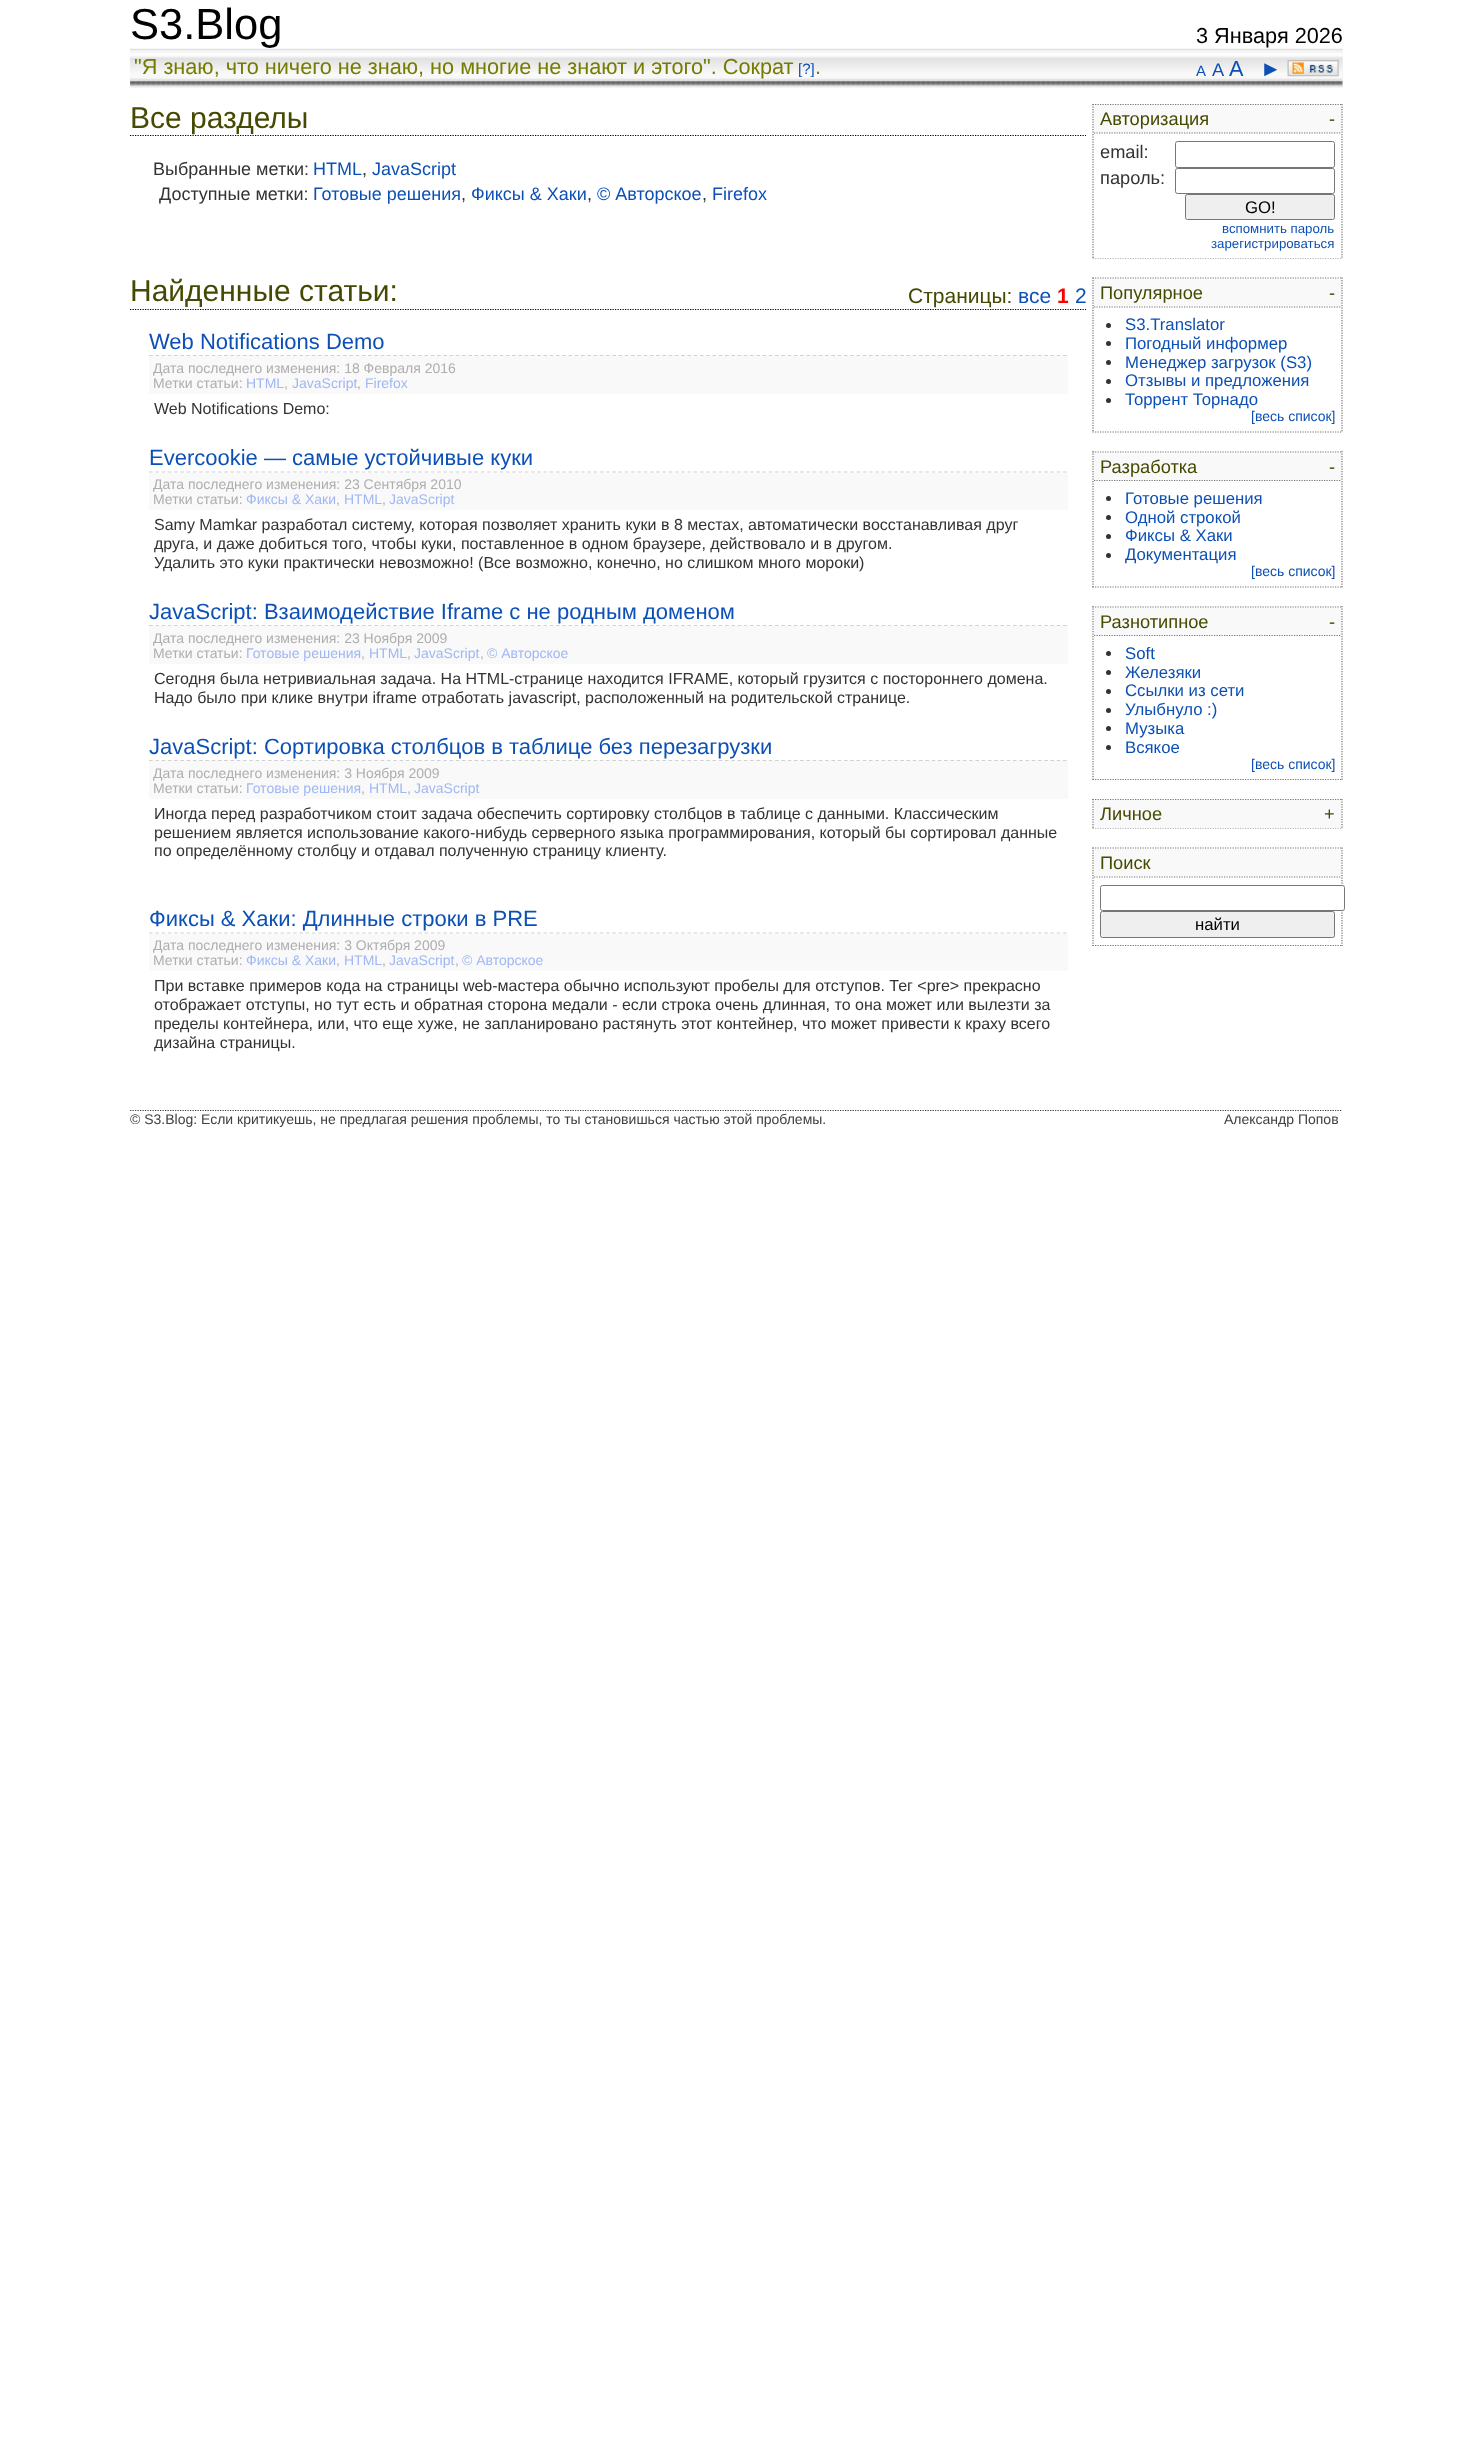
(async () => {
  const canvas = document.querySelector("canvas");
  canvas.width = 1472;
  canvas.height = 2442;
  const ctx = canvas.getContext("2d");
  ctx.miterLimit = 4;
  ctx.fontKerning = "normal";
  async function loadImage(src) {
    const img = new Image();
    img.src = src;
    await img.decode();
    return img;
  }
  let path;

  ctx.fillStyle = "#ffffff";
  ctx.fillRect(0, 0, 1472, 2442);
  ctx.fillStyle = "#f3f3f3";
  ctx.fillRect(130, 49, 1213, 39);
  ctx.drawImage(await loadImage("img/1.png"), 130, 48, 1213, 39);
  ctx.drawImage(await loadImage("img/2.png"), 1287, 60, 52, 17);
  path = new Path2D("M130 135.5H1086");
  ctx.strokeStyle = "#000000";
  ctx.lineWidth = 1.2;
  ctx.setLineDash([1.25, 1.25]);
  ctx.stroke(path);
  path = new Path2D("M130 309.5H1086");
  ctx.stroke(path);
  path = new Path2D("M149 355.5H1067.5");
  ctx.strokeStyle = "#d2d2d2";
  ctx.setLineDash([3.75, 2.51]);
  ctx.stroke(path);
  ctx.fillStyle = "#f9f9f9";
  ctx.fillRect(149, 356, 919, 38);
  path = new Path2D("M149 472H1067.5");
  ctx.stroke(path);
  ctx.fillRect(149, 473, 919, 37);
  path = new Path2D("M149 625.5H1067.5");
  ctx.stroke(path);
  ctx.fillRect(149, 626, 919, 38);
  path = new Path2D("M149 760.5H1067.5");
  ctx.stroke(path);
  ctx.fillRect(149, 761, 919, 38);
  path = new Path2D("M149 933H1067.5");
  ctx.stroke(path);
  ctx.fillRect(149, 934, 919, 37);
  path = new Path2D("M1092.5 104.5H1342.5");
  ctx.strokeStyle = "#757575";
  ctx.setLineDash([1.25, 1.25]);
  ctx.stroke(path);
  path = new Path2D("M1342 104V259");
  ctx.stroke(path);
  path = new Path2D("M1092.5 258H1342.5");
  ctx.stroke(path);
  path = new Path2D("M1093 104V259");
  ctx.stroke(path);
  ctx.fillRect(1094, 105, 247, 28);
  ctx.fillStyle = "#ffffff";
  ctx.fillRect(1095, 257, 246, 1);
  path = new Path2D("M1094 133H1341");
  ctx.stroke(path);
  ctx.beginPath();
  ctx.roundRect(1175.5, 141.5, 159, 26, 2);
  ctx.strokeStyle = "#767676";
  ctx.lineWidth = 1;
  ctx.setLineDash([]);
  ctx.stroke();
  ctx.beginPath();
  ctx.roundRect(1175.5, 168.5, 159, 25, 2);
  ctx.stroke();
  ctx.fillStyle = "#efefef";
  ctx.beginPath();
  ctx.roundRect(1185.5, 194.5, 149, 25, 2);
  ctx.fill();
  ctx.stroke();
  path = new Path2D("M1092.5 278H1342.5");
  ctx.strokeStyle = "#757575";
  ctx.lineWidth = 1.2;
  ctx.setLineDash([1.25, 1.25]);
  ctx.stroke(path);
  path = new Path2D("M1342 277.5V432.5");
  ctx.stroke(path);
  path = new Path2D("M1092.5 432H1342.5");
  ctx.stroke(path);
  path = new Path2D("M1093 277.5V432.5");
  ctx.stroke(path);
  ctx.fillStyle = "#f9f9f9";
  ctx.fillRect(1094, 279, 247, 27);
  path = new Path2D("M1094 307H1341");
  ctx.stroke(path);
  ctx.fillStyle = "#333333";
  ctx.beginPath();
  ctx.arc(1108.5, 325.5, 2.5, 0, Math.PI * 2);
  ctx.fill();
  ctx.beginPath();
  ctx.arc(1108.5, 343.5, 2.5, 0, Math.PI * 2);
  ctx.fill();
  ctx.beginPath();
  ctx.arc(1108.5, 362.5, 2.5, 0, Math.PI * 2);
  ctx.fill();
  ctx.beginPath();
  ctx.arc(1108.5, 381.5, 2.5, 0, Math.PI * 2);
  ctx.fill();
  ctx.beginPath();
  ctx.arc(1108.5, 400.5, 2.5, 0, Math.PI * 2);
  ctx.fill();
  path = new Path2D("M1092.5 452H1342.5");
  ctx.stroke(path);
  path = new Path2D("M1342 451V587.5");
  ctx.stroke(path);
  path = new Path2D("M1092.5 587H1342.5");
  ctx.stroke(path);
  path = new Path2D("M1093 451V587.5");
  ctx.stroke(path);
  ctx.fillStyle = "#f9f9f9";
  ctx.fillRect(1094, 453, 247, 27);
  path = new Path2D("M1094 480.5H1341");
  ctx.stroke(path);
  ctx.fillStyle = "#333333";
  ctx.beginPath();
  ctx.arc(1108.5, 498.5, 2.5, 0, Math.PI * 2);
  ctx.fill();
  ctx.beginPath();
  ctx.arc(1108.5, 517.5, 2.5, 0, Math.PI * 2);
  ctx.fill();
  ctx.beginPath();
  ctx.arc(1108.5, 536.5, 2.5, 0, Math.PI * 2);
  ctx.fill();
  ctx.beginPath();
  ctx.arc(1108.5, 555.5, 2.5, 0, Math.PI * 2);
  ctx.fill();
  path = new Path2D("M1092.5 607H1342.5");
  ctx.stroke(path);
  path = new Path2D("M1342 606V780");
  ctx.stroke(path);
  path = new Path2D("M1092.5 779.5H1342.5");
  ctx.stroke(path);
  path = new Path2D("M1093 606V780");
  ctx.stroke(path);
  ctx.fillStyle = "#f9f9f9";
  ctx.fillRect(1094, 608, 247, 27);
  ctx.fillStyle = "#ffffff";
  ctx.fillRect(1095, 778, 246, 1);
  path = new Path2D("M1094 635.5H1341");
  ctx.stroke(path);
  ctx.fillStyle = "#333333";
  ctx.beginPath();
  ctx.arc(1108.5, 653.5, 2.5, 0, Math.PI * 2);
  ctx.fill();
  ctx.beginPath();
  ctx.arc(1108.5, 672.5, 2.5, 0, Math.PI * 2);
  ctx.fill();
  ctx.beginPath();
  ctx.arc(1108.5, 691.5, 2.5, 0, Math.PI * 2);
  ctx.fill();
  ctx.beginPath();
  ctx.arc(1108.5, 710.5, 2.5, 0, Math.PI * 2);
  ctx.fill();
  ctx.beginPath();
  ctx.arc(1108.5, 728.5, 2.5, 0, Math.PI * 2);
  ctx.fill();
  ctx.beginPath();
  ctx.arc(1108.5, 747.5, 2.5, 0, Math.PI * 2);
  ctx.fill();
  path = new Path2D("M1092.5 799.5H1342.5");
  ctx.stroke(path);
  path = new Path2D("M1342 799V829");
  ctx.stroke(path);
  path = new Path2D("M1092.5 828H1342.5");
  ctx.stroke(path);
  path = new Path2D("M1093 799V829");
  ctx.stroke(path);
  ctx.fillStyle = "#f9f9f9";
  ctx.fillRect(1094, 800, 247, 28);
  path = new Path2D("M1092.5 848H1342.5");
  ctx.stroke(path);
  path = new Path2D("M1342 847.5V946");
  ctx.stroke(path);
  path = new Path2D("M1092.5 945.5H1342.5");
  ctx.stroke(path);
  path = new Path2D("M1093 847.5V946");
  ctx.stroke(path);
  ctx.fillRect(1094, 849, 247, 27);
  ctx.fillStyle = "#ffffff";
  ctx.fillRect(1095, 944, 246, 1);
  path = new Path2D("M1094 877H1341");
  ctx.stroke(path);
  ctx.beginPath();
  ctx.roundRect(1100.5, 885.5, 244, 25, 2);
  ctx.fill();
  ctx.strokeStyle = "#767676";
  ctx.lineWidth = 1;
  ctx.setLineDash([]);
  ctx.stroke();
  ctx.fillStyle = "#efefef";
  ctx.beginPath();
  ctx.roundRect(1100.5, 911.5, 234, 26, 2);
  ctx.fill();
  ctx.stroke();
  path = new Path2D("M130 1110.5H1342.5");
  ctx.strokeStyle = "#404040";
  ctx.lineWidth = 1.2;
  ctx.setLineDash([1.25, 1.25]);
  ctx.stroke(path);
  ctx.font = "43.5px Liberation Sans";
  ctx.fillStyle = "#000000";
  ctx.fillText("S3.Blog", 130, 39);
  ctx.font = "21.7px Liberation Sans";
  ctx.fillText("3 Января 2026", 1196, 43);
  ctx.fillStyle = "#767c01";
  ctx.fillText("\"Я знаю, что ничего не знаю, но многие не знают и этого\". Сократ", 134, 74);
  ctx.font = "15px Liberation Sans";
  ctx.fillStyle = "#0c50b6";
  ctx.fillText("[?]", 798, 74);
  ctx.font = "21.7px Liberation Sans";
  ctx.fillStyle = "#767c01";
  ctx.fillText(".", 815, 74);
  ctx.font = "15px Liberation Sans";
  ctx.fillStyle = "#0c50b6";
  ctx.fillText("A", 1196, 76);
  ctx.font = "18.25px Liberation Sans";
  ctx.fillText("A", 1212, 76);
  ctx.font = "21.7px Liberation Sans";
  ctx.fillText("A", 1229, 76);
  ctx.fillText("►", 1260, 76);
  ctx.font = "30px Liberation Sans";
  ctx.fillStyle = "#464901";
  ctx.fillText("Все разделы", 130, 128);
  ctx.font = "18px Liberation Sans";
  ctx.fillStyle = "#333333";
  ctx.fillText("Выбранные метки:", 153, 175);
  ctx.fillStyle = "#0c50b6";
  ctx.fillText("HTML", 313, 175);
  ctx.fillText("JavaScript", 372, 175);
  ctx.fillStyle = "#333333";
  ctx.fillText(",", 362, 175);
  ctx.fillText("Доступные метки:", 159, 200);
  ctx.fillStyle = "#0c50b6";
  ctx.fillText("Готовые решения", 313, 200);
  ctx.fillStyle = "#333333";
  ctx.fillText(",", 461, 200);
  ctx.fillStyle = "#0c50b6";
  ctx.fillText("Фиксы & Хаки", 471, 200);
  ctx.fillStyle = "#333333";
  ctx.fillText(",", 587, 200);
  ctx.fillStyle = "#0c50b6";
  ctx.fillText("© Авторское", 597, 200);
  ctx.fillStyle = "#333333";
  ctx.fillText(",", 702, 200);
  ctx.fillStyle = "#0c50b6";
  ctx.fillText("Firefox", 712, 200);
  ctx.font = "30px Liberation Sans";
  ctx.fillStyle = "#464901";
  ctx.fillText("Найденные статьи:", 130, 301);
  ctx.font = "21px Liberation Sans";
  ctx.fillText("Страницы:", 908, 303);
  ctx.fillStyle = "#0c50b6";
  ctx.fillText("все", 1018, 303);
  ctx.font = "bold 21px Liberation Sans";
  ctx.fillStyle = "#ff0000";
  ctx.fillText("1", 1057, 303);
  ctx.font = "21px Liberation Sans";
  ctx.fillStyle = "#0c50b6";
  ctx.fillText("2", 1075, 303);
  ctx.font = "22px Liberation Sans";
  ctx.fillText("Web Notifications Demo", 149, 349);
  ctx.font = "14px Liberation Sans";
  ctx.fillStyle = "#aeaeae";
  ctx.fillText("Дата последнего изменения: 18 Февраля 2016", 153, 373);
  ctx.fillText("Метки статьи:", 153, 388);
  ctx.fillStyle = "#9fb7f4";
  ctx.fillText("HTML", 246, 388);
  ctx.fillStyle = "#aeaeae";
  ctx.fillText(",", 284, 388);
  ctx.fillStyle = "#9fb7f4";
  ctx.fillText("JavaScript", 292, 388);
  ctx.fillStyle = "#aeaeae";
  ctx.fillText(",", 357, 388);
  ctx.fillStyle = "#9fb7f4";
  ctx.fillText("Firefox", 365, 388);
  ctx.font = "16px Liberation Sans";
  ctx.fillStyle = "#333333";
  ctx.fillText("Web Notifications Demo:", 154, 414);
  ctx.font = "22px Liberation Sans";
  ctx.fillStyle = "#0c50b6";
  ctx.fillText("Evercookie — самые устойчивые куки", 149, 465);
  ctx.font = "14px Liberation Sans";
  ctx.fillStyle = "#aeaeae";
  ctx.fillText("Дата последнего изменения: 23 Сентября 2010", 153, 489);
  ctx.fillText("Метки статьи:", 153, 504);
  ctx.fillStyle = "#9fb7f4";
  ctx.fillText("Фиксы & Хаки", 246, 504);
  ctx.fillStyle = "#aeaeae";
  ctx.fillText(",", 336, 504);
  ctx.fillStyle = "#9fb7f4";
  ctx.fillText("HTML", 344, 504);
  ctx.fillStyle = "#aeaeae";
  ctx.fillText(",", 382, 504);
  ctx.fillStyle = "#9fb7f4";
  ctx.fillText("JavaScript", 389, 504);
  ctx.font = "16px Liberation Sans";
  ctx.fillStyle = "#333333";
  for (const [text, x, y] of [
    ["Samy Mamkar разработал систему, которая позволяет хранить куки в 8 местах, автоматически восстанавливая друг", 154, 530],
    ["друга, и даже добиться того, чтобы куки, поставленное в одном браузере, действовало и в другом.", 154, 549],
    ["Удалить это куки практически невозможно! (Все возможно, конечно, но слишком много мороки)", 154, 568],
  ]) {
    ctx.fillText(text, x, y);
  }
  ctx.font = "22px Liberation Sans";
  ctx.fillStyle = "#0c50b6";
  ctx.fillText("JavaScript: Взаимодействие Iframe с не родным доменом", 149, 619);
  ctx.font = "14px Liberation Sans";
  ctx.fillStyle = "#aeaeae";
  ctx.fillText("Дата последнего изменения: 23 Ноября 2009", 153, 643);
  ctx.fillText("Метки статьи:", 153, 658);
  ctx.fillStyle = "#9fb7f4";
  ctx.fillText("Готовые решения", 246, 658);
  ctx.fillStyle = "#aeaeae";
  ctx.fillText(",", 361, 658);
  ctx.fillStyle = "#9fb7f4";
  ctx.fillText("HTML", 369, 658);
  ctx.fillStyle = "#aeaeae";
  ctx.fillText(",", 407, 658);
  ctx.fillStyle = "#9fb7f4";
  ctx.fillText("JavaScript", 414, 658);
  ctx.fillStyle = "#aeaeae";
  ctx.fillText(",", 480, 658);
  ctx.fillStyle = "#9fb7f4";
  ctx.fillText("© Авторское", 487, 658);
  ctx.font = "16px Liberation Sans";
  ctx.fillStyle = "#333333";
  ctx.fillText("Сегодня была нетривиальная задача. На HTML-странице находится IFRAME, который грузится с постороннего домена.", 154, 684);
  ctx.fillText("Надо было при клике внутри iframe отработать javascript, расположенный на родительской странице.", 154, 703);
  ctx.font = "22px Liberation Sans";
  ctx.fillStyle = "#0c50b6";
  ctx.fillText("JavaScript: Сортировка столбцов в таблице без перезагрузки", 149, 754);
  ctx.font = "14px Liberation Sans";
  ctx.fillStyle = "#aeaeae";
  ctx.fillText("Дата последнего изменения: 3 Ноября 2009", 153, 778);
  ctx.fillText("Метки статьи:", 153, 793);
  ctx.fillStyle = "#9fb7f4";
  ctx.fillText("Готовые решения", 246, 793);
  ctx.fillStyle = "#aeaeae";
  ctx.fillText(",", 361, 793);
  ctx.fillStyle = "#9fb7f4";
  ctx.fillText("HTML", 369, 793);
  ctx.fillStyle = "#aeaeae";
  ctx.fillText(",", 407, 793);
  ctx.fillStyle = "#9fb7f4";
  ctx.fillText("JavaScript", 414, 793);
  ctx.font = "16px Liberation Sans";
  ctx.fillStyle = "#333333";
  for (const [text, x, y] of [
    ["Иногда перед разработчиком стоит задача обеспечить сортировку столбцов в таблице с данными. Классическим", 154, 819],
    ["решением является использование какого-нибудь серверного языка программирования, который бы сортировал данные", 154, 838],
    ["по определённому столбцу и отдавал полученную страницу клиенту.", 154, 856],
  ]) {
    ctx.fillText(text, x, y);
  }
  ctx.font = "22px Liberation Sans";
  ctx.fillStyle = "#0c50b6";
  ctx.fillText("Фиксы & Хаки: Длинные строки в PRE", 149, 926);
  ctx.font = "14px Liberation Sans";
  ctx.fillStyle = "#aeaeae";
  ctx.fillText("Дата последнего изменения: 3 Октября 2009", 153, 950);
  ctx.fillText("Метки статьи:", 153, 965);
  ctx.fillStyle = "#9fb7f4";
  ctx.fillText("Фиксы & Хаки", 246, 965);
  ctx.fillStyle = "#aeaeae";
  ctx.fillText(",", 336, 965);
  ctx.fillStyle = "#9fb7f4";
  ctx.fillText("HTML", 344, 965);
  ctx.fillStyle = "#aeaeae";
  ctx.fillText(",", 382, 965);
  ctx.fillStyle = "#9fb7f4";
  ctx.fillText("JavaScript", 389, 965);
  ctx.fillStyle = "#aeaeae";
  ctx.fillText(",", 455, 965);
  ctx.fillStyle = "#9fb7f4";
  ctx.fillText("© Авторское", 462, 965);
  ctx.font = "16px Liberation Sans";
  ctx.fillStyle = "#333333";
  for (const [text, x, y] of [
    ["При вставке примеров кода на страницы web-мастера обычно используют пробелы для отступов. Тег <pre> прекрасно", 154, 991],
    ["отображаeт отступы, но тут есть и обратная сторона медали - если строка очень длинная, то она может или вылезти за", 154, 1010],
    ["пределы контейнера, или, что еще хуже, не запланировано растянуть этот контейнер, что может привести к краху всего", 154, 1029],
    ["дизайна страницы.", 154, 1048],
  ]) {
    ctx.fillText(text, x, y);
  }
  ctx.font = "18.25px Liberation Sans";
  ctx.fillStyle = "#464901";
  ctx.fillText("Авторизация", 1100, 125);
  ctx.fillText("-", 1329, 125);
  ctx.fillStyle = "#333333";
  ctx.fillText("email:", 1100, 158);
  ctx.fillText("пароль:", 1100, 184);
  ctx.font = "16.75px Liberation Sans";
  ctx.fillStyle = "#000000";
  ctx.fillText("GO!", 1245, 213);
  ctx.font = "13.25px Liberation Sans";
  ctx.fillStyle = "#0c50b6";
  ctx.fillText("вспомнить пароль", 1222, 233);
  ctx.fillText("зарегистрироваться", 1211, 248);
  ctx.font = "18.25px Liberation Sans";
  ctx.fillStyle = "#464901";
  ctx.fillText("Популярное", 1100, 299);
  ctx.fillText("-", 1329, 299);
  ctx.font = "16.75px Liberation Sans";
  ctx.fillStyle = "#0c50b6";
  for (const [text, x, y] of [
    ["S3.Translator", 1125, 330],
    ["Погодный информер", 1125, 349],
    ["Менеджер загрузок (S3)", 1125, 368],
    ["Отзывы и предложения", 1125, 386],
    ["Торрент Торнадо", 1125, 405],
  ]) {
    ctx.fillText(text, x, y);
  }
  ctx.font = "14px Liberation Sans";
  ctx.fillText("[весь список]", 1251, 421);
  ctx.font = "18.25px Liberation Sans";
  ctx.fillStyle = "#464901";
  ctx.fillText("Разработка", 1100, 473);
  ctx.fillText("-", 1329, 473);
  ctx.font = "16.75px Liberation Sans";
  ctx.fillStyle = "#0c50b6";
  for (const [text, x, y] of [
    ["Готовые решения", 1125, 504],
    ["Одной строкой", 1125, 523],
    ["Фиксы & Хаки", 1125, 541],
    ["Документация", 1125, 560],
  ]) {
    ctx.fillText(text, x, y);
  }
  ctx.font = "14px Liberation Sans";
  ctx.fillText("[весь список]", 1251, 576);
  ctx.font = "18.25px Liberation Sans";
  ctx.fillStyle = "#464901";
  ctx.fillText("Разнотипное", 1100, 628);
  ctx.fillText("-", 1329, 628);
  ctx.font = "16.75px Liberation Sans";
  ctx.fillStyle = "#0c50b6";
  for (const [text, x, y] of [
    ["Soft", 1125, 659],
    ["Железяки", 1125, 678],
    ["Ссылки из сети", 1125, 696],
    ["Улыбнуло :)", 1125, 715],
    ["Музыка", 1125, 734],
    ["Всякое", 1125, 753],
  ]) {
    ctx.fillText(text, x, y);
  }
  ctx.font = "14px Liberation Sans";
  ctx.fillText("[весь список]", 1251, 769);
  ctx.font = "18.25px Liberation Sans";
  ctx.fillStyle = "#464901";
  for (const [text, x, y] of [
    ["Личное", 1100, 820],
    ["+", 1324, 820],
    ["Поиск", 1100, 869],
  ]) {
    ctx.fillText(text, x, y);
  }
  ctx.font = "16.75px Liberation Sans";
  ctx.fillStyle = "#000000";
  ctx.fillText("найти", 1195, 930);
  ctx.font = "14px Liberation Sans";
  ctx.fillStyle = "#404040";
  ctx.fillText("© S3.Blog: Если критикуешь, не предлагая решения проблемы, то ты становишься частью этой проблемы.", 130, 1124);
  ctx.fillText("Александр Попов", 1224, 1124);
})();
